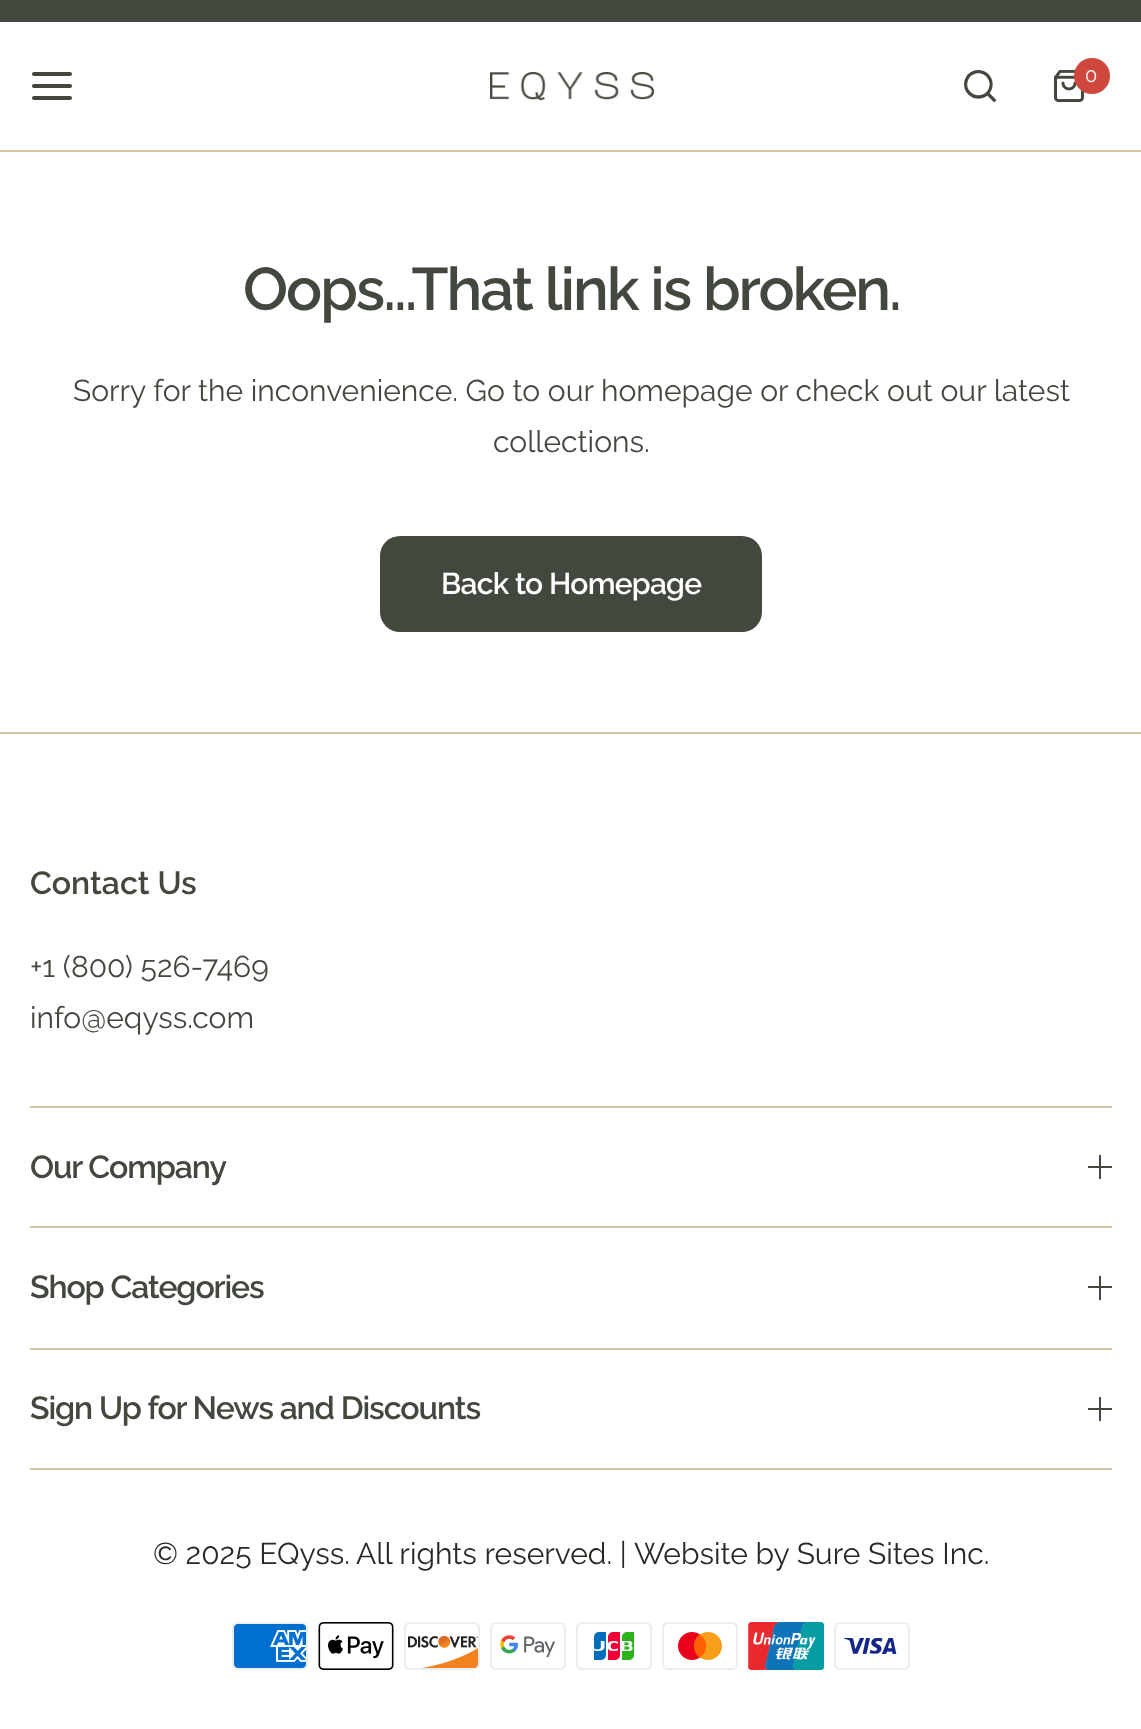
(async () => {
  const canvas = document.querySelector("canvas");
  canvas.width = 1141;
  canvas.height = 1729;
  const ctx = canvas.getContext("2d");
  ctx.miterLimit = 4;
  ctx.fontKerning = "normal";
  async function loadImage(src) {
    const img = new Image();
    img.src = src;
    await img.decode();
    return img;
  }

  ctx.fillStyle = "#ffffff";
  ctx.fillRect(0, 0, 1141, 1729);
  ctx.fillStyle = "#43483e";
  ctx.fillRect(0, 0, 1141, 22);
  ctx.fillStyle = "#d7c4a3";
  ctx.fillRect(0, 150, 1141, 2);
  ctx.drawImage(await loadImage("img/1.png"), 32, 72, 40, 28);
  ctx.drawImage(await loadImage("img/2.png"), 490, 72, 164, 28);
  ctx.drawImage(await loadImage("img/3.png"), 964, 70, 32, 32);
  ctx.drawImage(await loadImage("img/4.png"), 1054, 70, 30, 32);
  ctx.fillStyle = "#d0473e";
  ctx.beginPath();
  ctx.arc(1092, 76, 18, 0, Math.PI * 2);
  ctx.fill();
  ctx.fillStyle = "#43483e";
  ctx.beginPath();
  ctx.roundRect(380, 536, 382, 96, 20);
  ctx.fill();
  for (const [x, y, w, h, color] of [
    [0, 732, 1141, 2, "#d7c4a3"],
    [30, 1106, 1082, 2, "#d7c4a3"],
    [30, 1226, 1082, 2, "#d7c4a3"],
    [1088, 1166, 24, 2, "#43483e"],
    [1099, 1155, 2, 24, "#43483e"],
    [30, 1348, 1082, 2, "#d7c4a3"],
    [1088, 1286, 24, 2, "#43483e"],
    [1099, 1276, 2, 24, "#43483e"],
    [30, 1468, 1082, 2, "#d7c4a3"],
    [1088, 1408, 24, 2, "#43483e"],
    [1099, 1397, 2, 24, "#43483e"],
  ]) {
    ctx.fillStyle = color;
    ctx.fillRect(x, y, w, h);
  }
  ctx.drawImage(await loadImage("img/5.png"), 232, 1622, 76, 48);
  ctx.drawImage(await loadImage("img/6.png"), 318, 1622, 76, 48);
  ctx.drawImage(await loadImage("img/7.png"), 404, 1622, 76, 48);
  ctx.drawImage(await loadImage("img/8.png"), 490, 1622, 76, 48);
  ctx.drawImage(await loadImage("img/9.png"), 576, 1622, 76, 48);
  ctx.drawImage(await loadImage("img/10.png"), 662, 1622, 76, 48);
  ctx.drawImage(await loadImage("img/11.png"), 748, 1622, 76, 48);
  ctx.drawImage(await loadImage("img/12.png"), 834, 1622, 76, 48);
  ctx.font = "20px Raleway";
  ctx.fillStyle = "#ffffff";
  ctx.fillText("0", 1085, 82);
  ctx.letterSpacing = "-2.05px";
  ctx.font = "600 60px Raleway";
  ctx.fillStyle = "#43483e";
  ctx.fillText("Oops...That link is broken.", 243, 310);
  ctx.letterSpacing = "0px";
  ctx.font = "30px Raleway";
  ctx.fillText("Sorry for the inconvenience. Go to our homepage or check out our latest", 73, 401);
  ctx.fillText("collections.", 493, 452);
  ctx.letterSpacing = "-0.75px";
  ctx.font = "600 30px Raleway";
  ctx.fillStyle = "#ffffff";
  ctx.fillText("Back to Homepage", 441, 594);
  ctx.letterSpacing = "0px";
  ctx.font = "600 32px Raleway";
  ctx.fillStyle = "#43483e";
  ctx.fillText("Contact Us", 30, 894);
  ctx.font = "30px Raleway";
  ctx.fillText("+1 (800) 526-7469", 30, 977);
  ctx.fillText("info@eqyss.com", 30, 1028);
  ctx.letterSpacing = "-1.1px";
  ctx.font = "600 32px Raleway";
  for (const [text, x, y] of [
    ["Our Company", 30, 1178],
    ["Shop Categories", 30, 1298],
    ["Sign Up for News and Discounts", 30, 1419],
  ]) {
    ctx.fillText(text, x, y);
  }
  ctx.letterSpacing = "0px";
  ctx.font = "30px Raleway";
  ctx.fillStyle = "#272923";
  for (const [text, x, y] of [
    ["© 2025 EQyss.", 153, 1564],
    ["All rights reserved. |", 356, 1564],
    ["Website by Sure Sites Inc.", 634, 1564],
  ]) {
    ctx.fillText(text, x, y);
  }
})();
